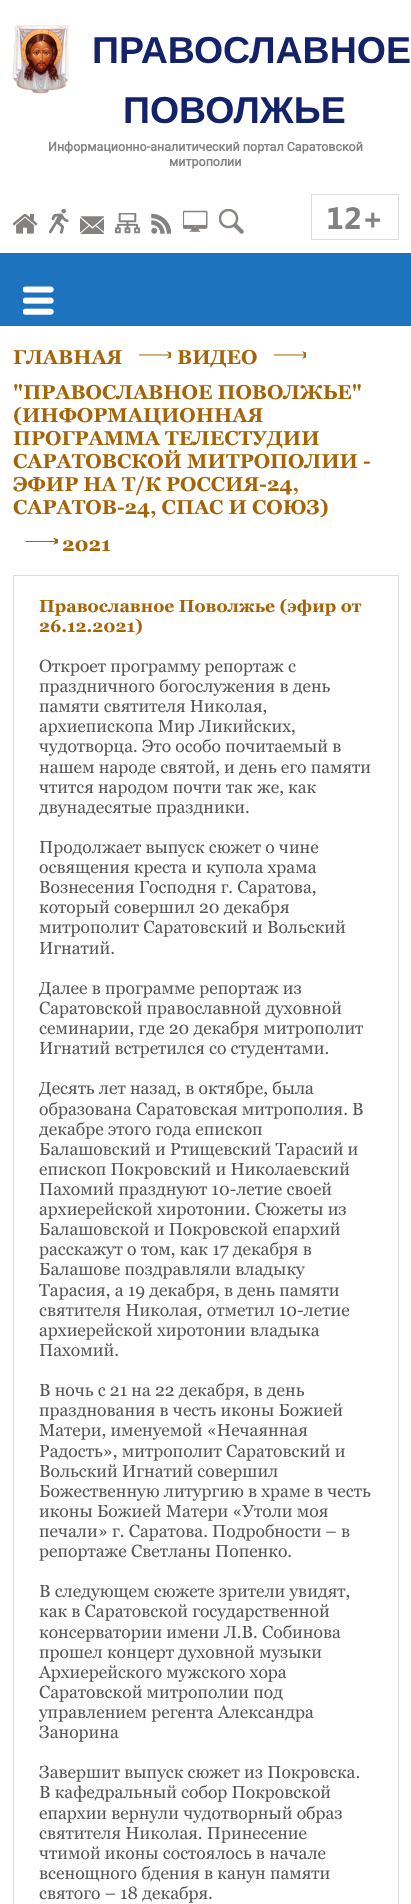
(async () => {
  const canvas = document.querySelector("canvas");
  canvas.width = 411;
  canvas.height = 1904;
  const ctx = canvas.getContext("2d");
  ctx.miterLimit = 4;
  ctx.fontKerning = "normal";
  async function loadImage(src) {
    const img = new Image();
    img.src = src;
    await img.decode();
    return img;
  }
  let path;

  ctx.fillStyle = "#ffffff";
  ctx.fillRect(0, 0, 411, 1904);
  ctx.drawImage(await loadImage("img/1.png"), 12, 25, 58, 69);
  ctx.drawImage(await loadImage("img/2.png"), 13, 214, 25, 20);
  ctx.drawImage(await loadImage("img/3.png"), 49, 209, 20, 25);
  ctx.drawImage(await loadImage("img/4.png"), 80, 216, 24, 18);
  ctx.drawImage(await loadImage("img/5.png"), 115, 213, 25, 21);
  ctx.drawImage(await loadImage("img/6.png"), 151, 214, 20, 20);
  ctx.drawImage(await loadImage("img/7.png"), 183, 210, 25, 22);
  ctx.drawImage(await loadImage("img/8.png"), 219, 209, 25, 25);
  ctx.strokeStyle = "#dddddd";
  ctx.strokeRect(311.5, 194.5, 87, 45);
  ctx.fillStyle = "#1e73be";
  ctx.fillRect(0, 253, 411, 73);
  ctx.drawImage(await loadImage("img/9.png"), 23, 286, 31, 29);
  ctx.save();
  ctx.beginPath();
  ctx.rect(139, 351, 32, 8);
  ctx.clip();
  path = new Path2D("M139.5 355H177");
  ctx.strokeStyle = "#a66408";
  ctx.lineWidth = 1.2;
  ctx.lineCap = "round";
  ctx.stroke(path);
  ctx.fillStyle = "#a66408";
  path = new Path2D("M169.5 355H173.5H169.5L167 351C167 351 171.5 353.5 184.5 355C171.5 356.5 167 359 167 359Z");
  ctx.fill(path);
  ctx.restore();
  ctx.save();
  ctx.beginPath();
  ctx.rect(274, 351, 32, 8);
  ctx.clip();
  path = new Path2D("M274.5 355H312");
  ctx.strokeStyle = "#a66408";
  ctx.lineWidth = 1.2;
  ctx.lineCap = "round";
  ctx.stroke(path);
  ctx.fillStyle = "#a66408";
  path = new Path2D("M304.5 355H308.5H304.5L302 351C302 351 306.5 353.5 319.5 355C306.5 356.5 302 359 302 359Z");
  ctx.fill(path);
  ctx.restore();
  ctx.save();
  ctx.beginPath();
  ctx.rect(25, 538, 33, 7);
  ctx.clip();
  path = new Path2D("M26 541.5H63.5");
  ctx.strokeStyle = "#a66408";
  ctx.lineWidth = 1.2;
  ctx.lineCap = "round";
  ctx.stroke(path);
  ctx.fillStyle = "#a66408";
  path = new Path2D("M55.5 541.5L59.5 541H55.5L53 537.5C53 537.5 57.5 540 71 541H70.5L71 541.5C57.5 542.5 53 545 53 545Z");
  ctx.fill(path);
  ctx.restore();
  ctx.strokeRect(13.5, 575.5, 385, 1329);
  ctx.font = "bold 37.5px Liberation Sans";
  ctx.fillStyle = "#14226a";
  ctx.fillText("ПРАВОСЛАВНОЕ", 92, 63);
  ctx.fillText("ПОВОЛЖЬЕ", 123, 123);
  ctx.font = "bold 12.5px Roboto";
  ctx.fillStyle = "#848280";
  ctx.fillText("Информационно-аналитический портал Саратовской", 48, 151);
  ctx.fillText("митрополии", 169, 166);
  ctx.font = "bold 31px Segoe UI";
  ctx.fillText("12+", 326, 229);
  ctx.font = "bold 20px Georgia";
  ctx.fillStyle = "#a66408";
  for (const [text, x, y] of [
    ["ГЛАВНАЯ", 13, 364],
    ["ВИДЕО", 177, 364],
    ["\"ПРАВОСЛАВНОЕ ПОВОЛЖЬЕ\"", 13, 399],
    ["(ИНФОРМАЦИОННАЯ", 13, 422],
    ["ПРОГРАММА ТЕЛЕСТУДИИ", 13, 445],
    ["САРАТОВСКОЙ МИТРОПОЛИИ -", 13, 468],
    ["ЭФИР НА Т/К РОССИЯ-24,", 13, 491],
    ["САРАТОВ-24, СПАС И СОЮЗ)", 13, 514],
    ["2021", 62, 551],
  ]) {
    ctx.fillText(text, x, y);
  }
  ctx.font = "bold 17.5px Georgia";
  ctx.fillText("Православное Поволжье (эфир от", 39, 612);
  ctx.fillText("26.12.2021)", 39, 632);
  ctx.font = "17.5px Georgia";
  ctx.fillStyle = "#565656";
  for (const [text, x, y] of [
    ["Откроет программу репортаж с", 39, 672],
    ["праздничного богослужения в день", 39, 692],
    ["памяти святителя Николая,", 39, 712],
    ["архиепископа Мир Ликийских,", 39, 732],
    ["чудотворца. Это особо почитаемый в", 39, 752],
    ["нашем народе святой, и день его памяти", 39, 773],
    ["чтится народом почти так же, как", 39, 793],
    ["двунадесятые праздники.", 39, 813],
    ["Продолжает выпуск сюжет о чине", 39, 853],
    ["освящения креста и купола храма", 39, 873],
    ["Вознесения Господня г. Саратова,", 39, 893],
    ["который совершил 20 декабря", 39, 913],
    ["митрополит Саратовский и Вольский", 39, 933],
    ["Игнатий.", 39, 954],
    ["Далее в программе репортаж из", 39, 994],
    ["Саратовской православной духовной", 39, 1014],
    ["семинарии, где 20 декабря митрополит", 39, 1034],
    ["Игнатий встретился со студентами.", 39, 1054],
    ["Десять лет назад, в октябре, была", 39, 1094],
    ["образована Саратовская митрополия. В", 39, 1115],
    ["декабре этого года епископ", 39, 1135],
    ["Балашовский и Ртищевский Тарасий и", 39, 1155],
    ["епископ Покровский и Николаевский", 39, 1175],
    ["Пахомий празднуют 10-летие своей", 39, 1195],
    ["архиерейской хиротонии. Сюжеты из", 39, 1215],
    ["Балашовской и Покровской епархий", 39, 1235],
    ["расскажут о том, как 17 декабря в", 39, 1255],
    ["Балашове поздравляли владыку", 39, 1275],
    ["Тарасия, а 19 декабря, в день памяти", 39, 1296],
    ["святителя Николая, отметил 10-летие", 39, 1316],
    ["архиерейской хиротонии владыка", 39, 1336],
    ["Пахомий.", 39, 1356],
    ["В ночь с 21 на 22 декабря, в день", 39, 1396],
    ["празднования в честь иконы Божией", 39, 1416],
    ["Матери, именуемой «Нечаянная", 39, 1436],
    ["Радость», митрополит Саратовский и", 39, 1457],
    ["Вольский Игнатий совершил", 39, 1477],
    ["Божественную литургию в храме в честь", 39, 1497],
    ["иконы Божией Матери «Утоли моя", 39, 1517],
    ["печали» г. Саратова. Подробности – в", 39, 1537],
    ["репортаже Светланы Попенко.", 39, 1557],
    ["В следующем сюжете зрители увидят,", 39, 1597],
    ["как в Саратовской государственной", 39, 1617],
    ["консерватории имени Л.В. Собинова", 39, 1638],
    ["прошел концерт духовной музыки", 39, 1658],
    ["Архиерейского мужского хора", 39, 1678],
    ["Саратовской митрополии под", 39, 1698],
    ["управлением регента Александра", 39, 1718],
    ["Занорина", 39, 1738],
    ["Завершит выпуск сюжет из Покровска.", 39, 1778],
    ["В кафедральный собор Покровской", 39, 1798],
    ["епархии вернули чудотворный образ", 39, 1819],
    ["святителя Николая. Принесение", 39, 1839],
    ["чтимой иконы состоялось в начале", 39, 1859],
    ["всенощного бдения в канун памяти", 39, 1879],
    ["святого – 18 декабря.", 39, 1899],
  ]) {
    ctx.fillText(text, x, y);
  }
})();
